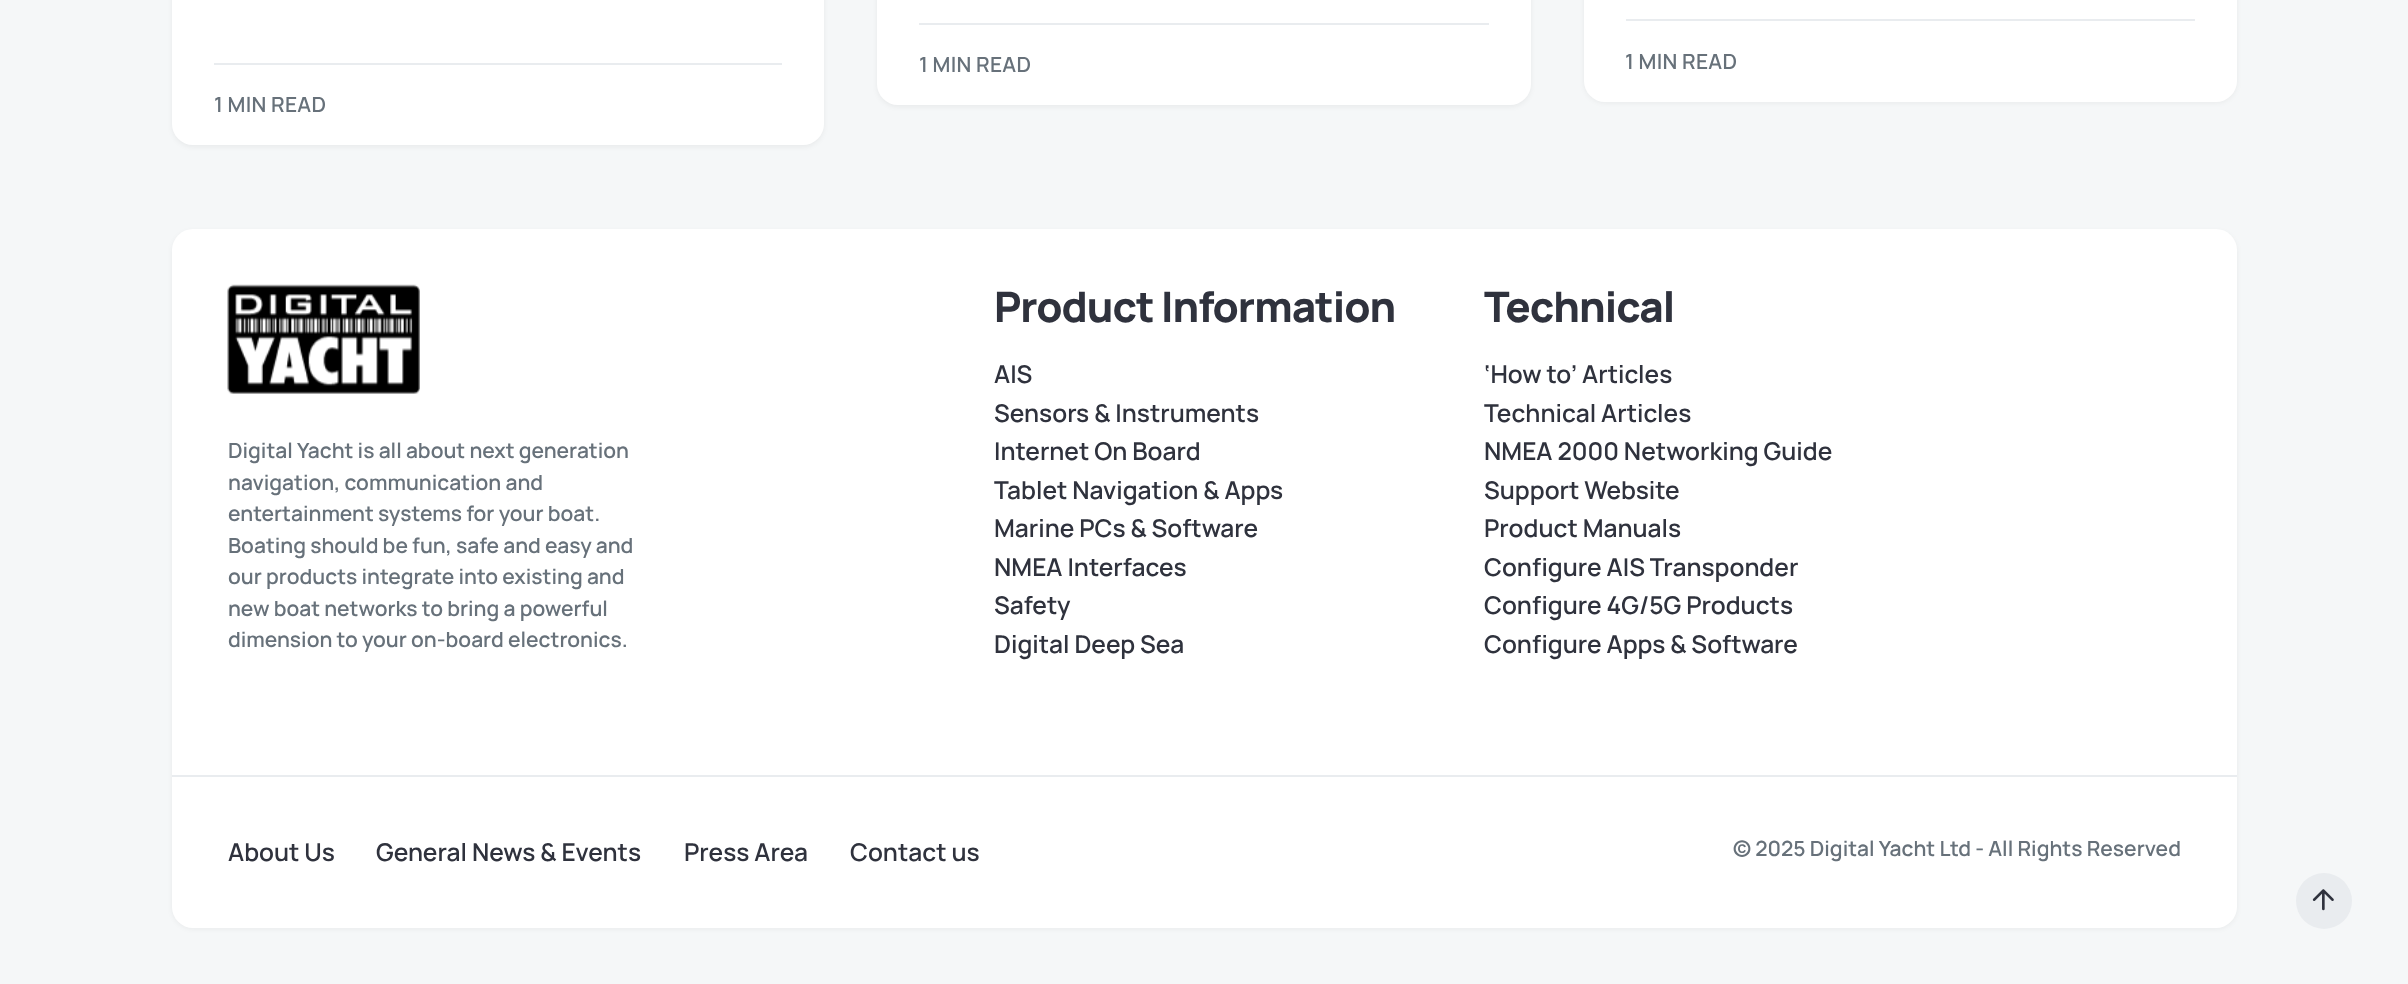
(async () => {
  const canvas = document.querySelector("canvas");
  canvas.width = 2408;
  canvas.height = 984;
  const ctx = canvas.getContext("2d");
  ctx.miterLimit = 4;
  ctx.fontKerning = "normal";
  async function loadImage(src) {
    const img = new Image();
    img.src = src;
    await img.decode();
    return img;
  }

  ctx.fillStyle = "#f5f7f8";
  ctx.fillRect(0, 0, 2408, 984);
  ctx.fillStyle = "rgba(0, 0, 0, 0.05)";
  ctx.filter = "blur(2.5px)";
  ctx.beginPath();
  ctx.roundRect(877, -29, 654, 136, 21);
  ctx.fill();
  ctx.filter = "none";
  ctx.fillStyle = "#ffffff";
  ctx.beginPath();
  ctx.roundRect(877, -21, 654, 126, 21);
  ctx.fill();
  ctx.fillStyle = "#e9ecef";
  ctx.fillRect(919, 23, 570, 2);
  ctx.fillStyle = "rgba(0, 0, 0, 0.05)";
  ctx.filter = "blur(2.5px)";
  ctx.beginPath();
  ctx.roundRect(1584, -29, 653, 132, 21);
  ctx.fill();
  ctx.filter = "none";
  ctx.fillStyle = "#ffffff";
  ctx.beginPath();
  ctx.roundRect(1584, -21, 653, 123, 21);
  ctx.fill();
  ctx.fillStyle = "#e9ecef";
  ctx.fillRect(1626, 19, 569, 2);
  ctx.fillStyle = "rgba(0, 0, 0, 0.05)";
  ctx.filter = "blur(2.5px)";
  ctx.beginPath();
  ctx.roundRect(172, -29, 652, 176, 21);
  ctx.fill();
  ctx.filter = "none";
  ctx.fillStyle = "#ffffff";
  ctx.beginPath();
  ctx.roundRect(172, -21, 652, 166, 21);
  ctx.fill();
  ctx.fillStyle = "#e9ecef";
  ctx.fillRect(214, 63, 568, 2);
  ctx.fillStyle = "rgba(0, 0, 0, 0.05)";
  ctx.filter = "blur(2.5px)";
  ctx.beginPath();
  ctx.roundRect(172, 231, 2065, 698, 21);
  ctx.fill();
  ctx.filter = "none";
  ctx.fillStyle = "#ffffff";
  ctx.beginPath();
  ctx.roundRect(172, 229, 2065, 546, [21, 21, 0, 0]);
  ctx.fill();
  ctx.drawImage(await loadImage("img/1.png"), 227, 284, 193, 110);
  ctx.beginPath();
  ctx.roundRect(172, 775, 2065, 153, [0, 0, 21, 21]);
  ctx.fill();
  ctx.fillStyle = "#e9ecef";
  ctx.fillRect(172, 775, 2065, 2);
  ctx.beginPath();
  ctx.arc(2324, 901, 28, 0, Math.PI * 2);
  ctx.fill();
  ctx.drawImage(await loadImage("img/2.png"), 2312, 889, 22, 22);
  ctx.letterSpacing = "0.25px";
  ctx.font = "600 21px Manrope";
  ctx.fillStyle = "#67717a";
  for (const [text, x, y] of [
    ["1 MIN READ", 919, 72],
    ["1 MIN READ", 1625, 69],
    ["1 MIN READ", 214, 112],
  ]) {
    ctx.fillText(text, x, y);
  }
  ctx.letterSpacing = "0px";
  for (const [text, x, y] of [
    ["Digital Yacht is all about next generation", 228, 458],
    ["navigation, communication and", 228, 490],
    ["entertainment systems for your boat.", 228, 521],
    ["Boating should be fun, safe and easy and", 228, 553],
    ["our products integrate into existing and", 228, 584],
    ["new boat networks to bring a powerful", 228, 616],
    ["dimension to your on-board electronics.", 228, 647],
  ]) {
    ctx.fillText(text, x, y);
  }
  ctx.letterSpacing = "-1px";
  ctx.font = "800 42px Manrope";
  ctx.fillStyle = "#2f323d";
  ctx.fillText("Product Information", 994, 322);
  ctx.letterSpacing = "0px";
  ctx.font = "600 24.5px Manrope";
  for (const [text, x, y] of [
    ["AIS", 994, 383],
    ["Sensors & Instruments", 994, 422],
    ["Internet On Board", 994, 460],
    ["Tablet Navigation & Apps", 994, 499],
    ["Marine PCs & Software", 994, 537],
    ["NMEA Interfaces", 994, 576],
    ["Safety", 994, 614],
    ["Digital Deep Sea", 994, 653],
  ]) {
    ctx.fillText(text, x, y);
  }
  ctx.letterSpacing = "-1px";
  ctx.font = "800 42px Manrope";
  ctx.fillText("Technical", 1484, 322);
  ctx.letterSpacing = "0px";
  ctx.font = "600 24.5px Manrope";
  for (const [text, x, y] of [
    ["‘How to’ Articles", 1484, 383],
    ["Technical Articles", 1484, 422],
    ["NMEA 2000 Networking Guide", 1484, 460],
    ["Support Website", 1484, 499],
    ["Product Manuals", 1484, 537],
    ["Configure AIS Transponder", 1484, 576],
    ["Configure 4G/5G Products", 1484, 614],
    ["Configure Apps & Software", 1484, 653],
    ["About Us", 228, 861],
    ["General News & Events", 376, 861],
    ["Press Area", 684, 861],
    ["Contact us", 850, 861],
  ]) {
    ctx.fillText(text, x, y);
  }
  ctx.font = "600 21px Manrope";
  ctx.fillStyle = "#67717a";
  ctx.fillText("© 2025 Digital Yacht Ltd - All Rights Reserved", 1733, 856);
})();
